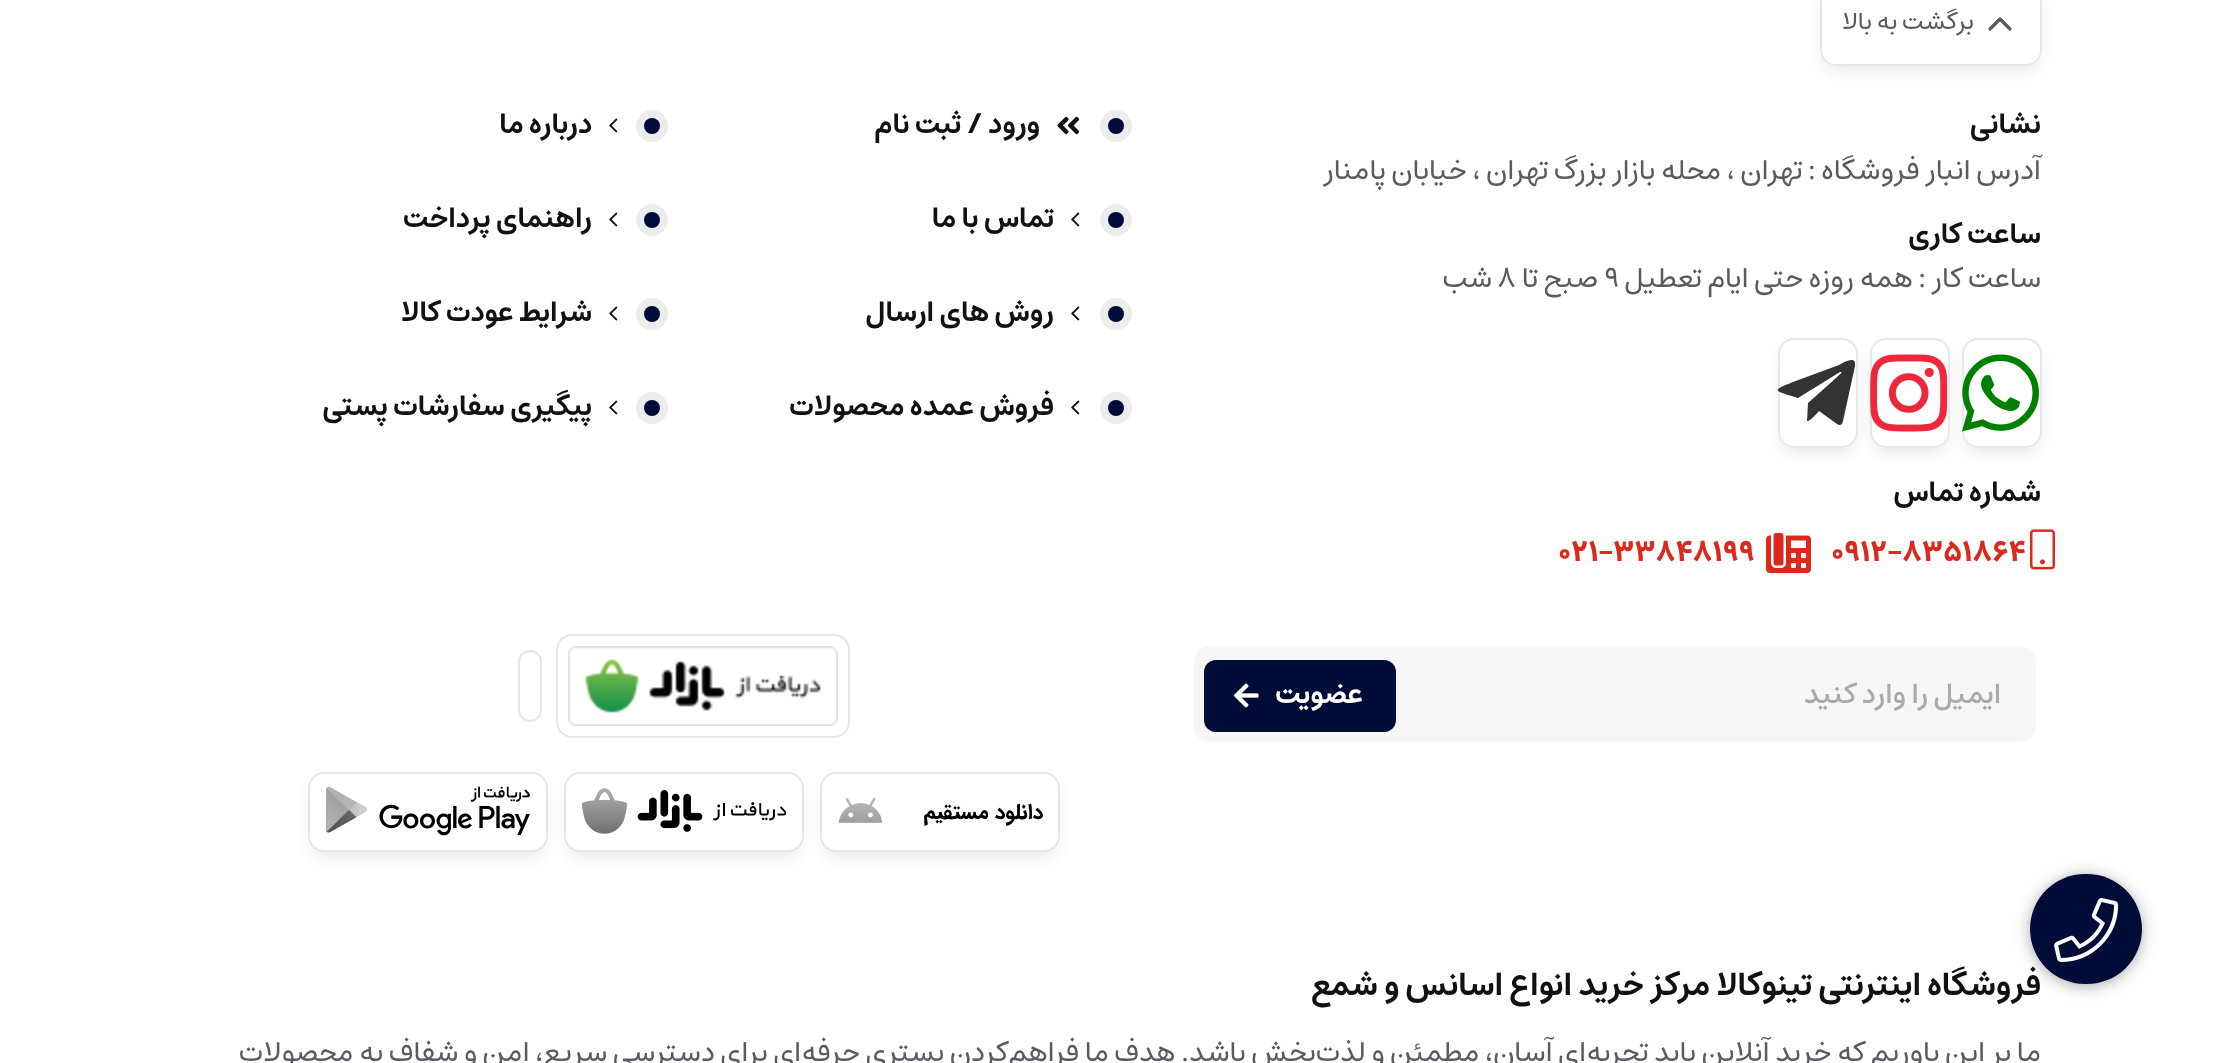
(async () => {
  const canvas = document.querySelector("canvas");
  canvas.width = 2221;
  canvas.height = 1063;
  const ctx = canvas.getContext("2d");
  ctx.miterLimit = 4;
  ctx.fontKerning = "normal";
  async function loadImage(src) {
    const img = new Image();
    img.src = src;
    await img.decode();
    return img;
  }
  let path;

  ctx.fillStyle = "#ffffff";
  ctx.fillRect(0, 0, 2221, 1063);
  ctx.fillStyle = "rgba(0, 0, 0, 0.15)";
  ctx.filter = "blur(10px)";
  ctx.beginPath();
  ctx.roundRect(2030, 876, 112, 110, 55);
  ctx.fill();
  ctx.filter = "none";
  ctx.fillStyle = "rgba(0, 0, 0, 0.2)";
  ctx.filter = "blur(6px)";
  ctx.beginPath();
  ctx.roundRect(2030, 876, 112, 110, 55);
  ctx.fill();
  ctx.filter = "none";
  ctx.save();
  path = new Path2D("M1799 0H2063V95H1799ZM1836-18H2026C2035-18 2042-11 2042-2V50C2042 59 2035 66 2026 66H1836C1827 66 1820 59 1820 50V-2C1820-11 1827-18 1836-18Z");
  ctx.clip(path, "evenodd");
  ctx.fillStyle = "rgba(16, 24, 40, 0.1)";
  ctx.filter = "blur(8px)";
  ctx.beginPath();
  ctx.roundRect(1824, -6, 214, 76, 12);
  ctx.fill();
  ctx.filter = "none";
  ctx.restore();
  ctx.beginPath();
  ctx.roundRect(1821, -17, 220, 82, 15);
  ctx.strokeStyle = "#e7e7e7";
  ctx.lineWidth = 2;
  ctx.stroke();
  path = new Path2D("M2010 29L2000 19L1990 29");
  ctx.strokeStyle = "#5a5b60";
  ctx.lineWidth = 3.3;
  ctx.lineCap = "round";
  ctx.lineJoin = "round";
  ctx.stroke(path);
  ctx.save();
  path = new Path2D("M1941 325H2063V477H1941ZM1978 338H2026C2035 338 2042 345 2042 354V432C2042 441 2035 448 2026 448H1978C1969 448 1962 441 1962 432V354C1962 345 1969 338 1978 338Z");
  ctx.clip(path, "evenodd");
  ctx.fillStyle = "rgba(16, 24, 40, 0.1)";
  ctx.filter = "blur(8px)";
  ctx.beginPath();
  ctx.roundRect(1966, 350, 72, 102, 12);
  ctx.fill();
  ctx.filter = "none";
  ctx.restore();
  ctx.beginPath();
  ctx.roundRect(1963, 339, 78, 108, 15);
  ctx.strokeStyle = "#e7e7e7";
  ctx.lineWidth = 2;
  ctx.lineJoin = "miter";
  ctx.stroke();
  ctx.drawImage(await loadImage("img/2.png"), 1962, 354, 77, 78);
  ctx.save();
  path = new Path2D("M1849 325H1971V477H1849ZM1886 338H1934C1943 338 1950 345 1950 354V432C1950 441 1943 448 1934 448H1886C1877 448 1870 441 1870 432V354C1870 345 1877 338 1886 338Z");
  ctx.clip(path, "evenodd");
  ctx.fillStyle = "rgba(16, 24, 40, 0.1)";
  ctx.filter = "blur(8px)";
  ctx.beginPath();
  ctx.roundRect(1874, 350, 72, 102, 12);
  ctx.fill();
  ctx.filter = "none";
  ctx.restore();
  ctx.beginPath();
  ctx.roundRect(1871, 339, 78, 108, 15);
  ctx.stroke();
  ctx.drawImage(await loadImage("img/3.png"), 1870, 354, 78, 78);
  ctx.save();
  path = new Path2D("M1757 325H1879V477H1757ZM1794 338H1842C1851 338 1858 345 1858 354V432C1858 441 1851 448 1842 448H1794C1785 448 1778 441 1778 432V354C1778 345 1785 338 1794 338Z");
  ctx.clip(path, "evenodd");
  ctx.fillStyle = "rgba(16, 24, 40, 0.1)";
  ctx.filter = "blur(8px)";
  ctx.beginPath();
  ctx.roundRect(1782, 350, 72, 102, 12);
  ctx.fill();
  ctx.filter = "none";
  ctx.restore();
  ctx.beginPath();
  ctx.roundRect(1779, 339, 78, 108, 15);
  ctx.stroke();
  ctx.fillStyle = "#333333";
  path = new Path2D("M1855 366L1843 421C1842 425 1840 426 1837 424L1819 411C1817 413 1811 421 1807 421L1808 403L1836 378C1839 375 1843 372 1841 372H1840L1798 398C1795 397 1780 393 1778 391C1777 388 1781 387 1793 382L1839 365C1842 363 1857 354 1855 366Z");
  ctx.fill(path);
  ctx.drawImage(await loadImage("img/4.png"), 2030, 529, 25, 41);
  ctx.drawImage(await loadImage("img/5.png"), 1766, 533, 45, 40);
  ctx.fillStyle = "#ececec";
  ctx.beginPath();
  ctx.arc(1116, 126, 16, 0, Math.PI * 2);
  ctx.fill();
  ctx.drawImage(await loadImage("img/6.png"), 1057, 116, 23, 19);
  ctx.fillStyle = "#000c38";
  ctx.beginPath();
  ctx.arc(1116, 126, 8, 0, Math.PI * 2);
  ctx.fill();
  ctx.fillStyle = "#ececec";
  ctx.beginPath();
  ctx.arc(652, 126, 16, 0, Math.PI * 2);
  ctx.fill();
  ctx.drawImage(await loadImage("img/7.png"), 609, 118, 9, 15);
  ctx.fillStyle = "#000c38";
  ctx.beginPath();
  ctx.arc(652, 126, 8, 0, Math.PI * 2);
  ctx.fill();
  ctx.fillStyle = "#ececec";
  ctx.beginPath();
  ctx.arc(1116, 220, 16, 0, Math.PI * 2);
  ctx.fill();
  ctx.drawImage(await loadImage("img/7.png"), 1071, 212, 9, 15);
  ctx.fillStyle = "#000c38";
  ctx.beginPath();
  ctx.arc(1116, 220, 8, 0, Math.PI * 2);
  ctx.fill();
  ctx.fillStyle = "#ececec";
  ctx.beginPath();
  ctx.arc(652, 220, 16, 0, Math.PI * 2);
  ctx.fill();
  ctx.drawImage(await loadImage("img/7.png"), 609, 212, 9, 15);
  ctx.fillStyle = "#000c38";
  ctx.beginPath();
  ctx.arc(652, 220, 8, 0, Math.PI * 2);
  ctx.fill();
  ctx.fillStyle = "#ececec";
  ctx.beginPath();
  ctx.arc(1116, 314, 16, 0, Math.PI * 2);
  ctx.fill();
  ctx.drawImage(await loadImage("img/7.png"), 1071, 306, 9, 15);
  ctx.fillStyle = "#000c38";
  ctx.beginPath();
  ctx.arc(1116, 314, 8, 0, Math.PI * 2);
  ctx.fill();
  ctx.fillStyle = "#ececec";
  ctx.beginPath();
  ctx.arc(652, 314, 16, 0, Math.PI * 2);
  ctx.fill();
  ctx.drawImage(await loadImage("img/7.png"), 609, 306, 9, 15);
  ctx.fillStyle = "#000c38";
  ctx.beginPath();
  ctx.arc(652, 314, 8, 0, Math.PI * 2);
  ctx.fill();
  ctx.fillStyle = "#ececec";
  ctx.beginPath();
  ctx.arc(1116, 408, 16, 0, Math.PI * 2);
  ctx.fill();
  ctx.drawImage(await loadImage("img/7.png"), 1071, 400, 9, 15);
  ctx.fillStyle = "#000c38";
  ctx.beginPath();
  ctx.arc(1116, 408, 8, 0, Math.PI * 2);
  ctx.fill();
  ctx.fillStyle = "#ececec";
  ctx.beginPath();
  ctx.arc(652, 408, 16, 0, Math.PI * 2);
  ctx.fill();
  ctx.drawImage(await loadImage("img/7.png"), 609, 400, 9, 15);
  ctx.fillStyle = "#000c38";
  ctx.beginPath();
  ctx.arc(652, 408, 8, 0, Math.PI * 2);
  ctx.fill();
  ctx.fillStyle = "#f6f6f6";
  ctx.beginPath();
  ctx.roundRect(1194, 646, 842, 96, 16);
  ctx.fill();
  ctx.fillStyle = "#000c38";
  ctx.beginPath();
  ctx.roundRect(1204, 660, 192, 72, 12);
  ctx.fill();
  ctx.drawImage(await loadImage("img/8.png"), 1234, 683, 25, 25);
  ctx.beginPath();
  ctx.roundRect(557, 635, 292, 102, 15);
  ctx.strokeStyle = "#e6e6e7";
  ctx.stroke();
  ctx.drawImage(await loadImage("img/9.png"), 568, 646, 270, 80);
  ctx.beginPath();
  ctx.roundRect(519, 651, 22, 70, 11);
  ctx.stroke();
  ctx.save();
  path = new Path2D("M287 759H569V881H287ZM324 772H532C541 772 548 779 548 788V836C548 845 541 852 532 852H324C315 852 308 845 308 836V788C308 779 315 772 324 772Z");
  ctx.clip(path, "evenodd");
  ctx.fillStyle = "rgba(23, 23, 23, 0.1)";
  ctx.filter = "blur(8px)";
  ctx.beginPath();
  ctx.roundRect(312, 784, 232, 72, 12);
  ctx.fill();
  ctx.filter = "none";
  ctx.restore();
  ctx.drawImage(await loadImage("img/12.png"), 326, 786, 204, 50);
  ctx.beginPath();
  ctx.roundRect(309, 773, 238, 78, 15);
  ctx.strokeStyle = "#e7e7e7";
  ctx.stroke();
  ctx.save();
  path = new Path2D("M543 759H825V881H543ZM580 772H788C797 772 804 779 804 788V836C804 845 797 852 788 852H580C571 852 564 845 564 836V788C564 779 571 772 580 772Z");
  ctx.clip(path, "evenodd");
  ctx.fillStyle = "rgba(23, 23, 23, 0.1)";
  ctx.filter = "blur(8px)";
  ctx.beginPath();
  ctx.roundRect(568, 784, 232, 72, 12);
  ctx.fill();
  ctx.filter = "none";
  ctx.restore();
  ctx.drawImage(await loadImage("img/11.png"), 581, 788, 206, 46);
  ctx.beginPath();
  ctx.roundRect(565, 773, 238, 78, 15);
  ctx.stroke();
  ctx.save();
  path = new Path2D("M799 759H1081V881H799ZM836 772H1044C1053 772 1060 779 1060 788V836C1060 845 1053 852 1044 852H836C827 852 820 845 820 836V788C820 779 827 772 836 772Z");
  ctx.clip(path, "evenodd");
  ctx.fillStyle = "rgba(23, 23, 23, 0.1)";
  ctx.filter = "blur(8px)";
  ctx.beginPath();
  ctx.roundRect(824, 784, 232, 72, 12);
  ctx.fill();
  ctx.filter = "none";
  ctx.restore();
  ctx.drawImage(await loadImage("img/10.png"), 838, 797, 205, 29);
  ctx.beginPath();
  ctx.roundRect(821, 773, 238, 78, 15);
  ctx.stroke();
  ctx.direction = "rtl";
  ctx.font = "24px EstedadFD";
  ctx.fillStyle = "#5a5b60";
  ctx.fillText("برگشت به بالا", 1974, 29);
  ctx.font = "600 28px EstedadFD";
  ctx.fillStyle = "#111112";
  ctx.fillText("نشانی", 2041, 133);
  ctx.font = "28px EstedadFD";
  ctx.fillStyle = "#5a5b60";
  ctx.fillText("آدرس انبار فروشگاه : تهران ، محله بازار بزرگ تهران ، خیابان پامنار", 2041, 179);
  ctx.font = "600 28px EstedadFD";
  ctx.fillStyle = "#111112";
  ctx.fillText("ساعت کاری", 2041, 243);
  ctx.font = "28px EstedadFD";
  ctx.fillStyle = "#5a5b60";
  ctx.fillText("ساعت کار : همه روزه حتی ایام تعطیل", 2041, 287);
  ctx.direction = "ltr";
  ctx.fillText("9", 1604, 287);
  ctx.direction = "rtl";
  ctx.fillText("صبح تا", 1598, 287);
  ctx.direction = "ltr";
  ctx.fillText("8", 1497, 287);
  ctx.direction = "rtl";
  ctx.fillText("شب", 1492, 287);
  ctx.font = "600 28px EstedadFD";
  ctx.fillStyle = "#111112";
  ctx.fillText("شماره تماس", 2041, 501);
  ctx.direction = "ltr";
  ctx.font = "bold 28px EstedadFD";
  ctx.fillStyle = "#dd281c";
  ctx.fillText("0912-8351864", 1831, 561);
  ctx.fillText("021-33848199", 1558, 561);
  ctx.direction = "rtl";
  ctx.font = "600 28px EstedadFD";
  ctx.fillStyle = "#111112";
  for (const [text, x, y] of [
    ["ورود / ثبت نام", 1040, 133],
    ["درباره ما", 592, 133],
    ["تماس با ما", 1054, 227],
    ["راهنمای پرداخت", 592, 227],
    ["روش های ارسال", 1054, 321],
    ["شرایط عودت کالا", 592, 321],
    ["فروش عمده محصولات", 1054, 415],
    ["پیگیری سفارشات پستی", 592, 415],
  ]) {
    ctx.fillText(text, x, y);
  }
  ctx.font = "500 28px EstedadFD";
  ctx.fillStyle = "#aaaaaa";
  ctx.fillText("ایمیل را وارد کنید", 2001, 703);
  ctx.font = "600 28px EstedadFD";
  ctx.fillStyle = "#ffffff";
  ctx.fillText("عضویت", 1363, 703);
  ctx.font = "600 32px EstedadFD";
  ctx.fillStyle = "#111112";
  ctx.fillText("فروشگاه اینترنتی تینوکالا مرکز خرید انواع اسانس و شمع", 2041, 995);
  ctx.fillStyle = "#000c38";
  ctx.beginPath();
  ctx.roundRect(2030, 874, 112, 110, 55);
  ctx.fill();
  ctx.drawImage(await loadImage("img/1.png"), 2054, 898, 65, 64);
  ctx.font = "28px EstedadFD";
  ctx.fillStyle = "#5a5b60";
  ctx.fillText("ما بر این باوریم که خرید آنلاین باید تجربه‌ای آسان، مطمئن و لذت‌بخش باشد. هدف ما فراهم‌کردن بستری حرفه‌ای برای دسترسی سریع، امن و شفاف به محصولات", 2041, 1061);
})();
